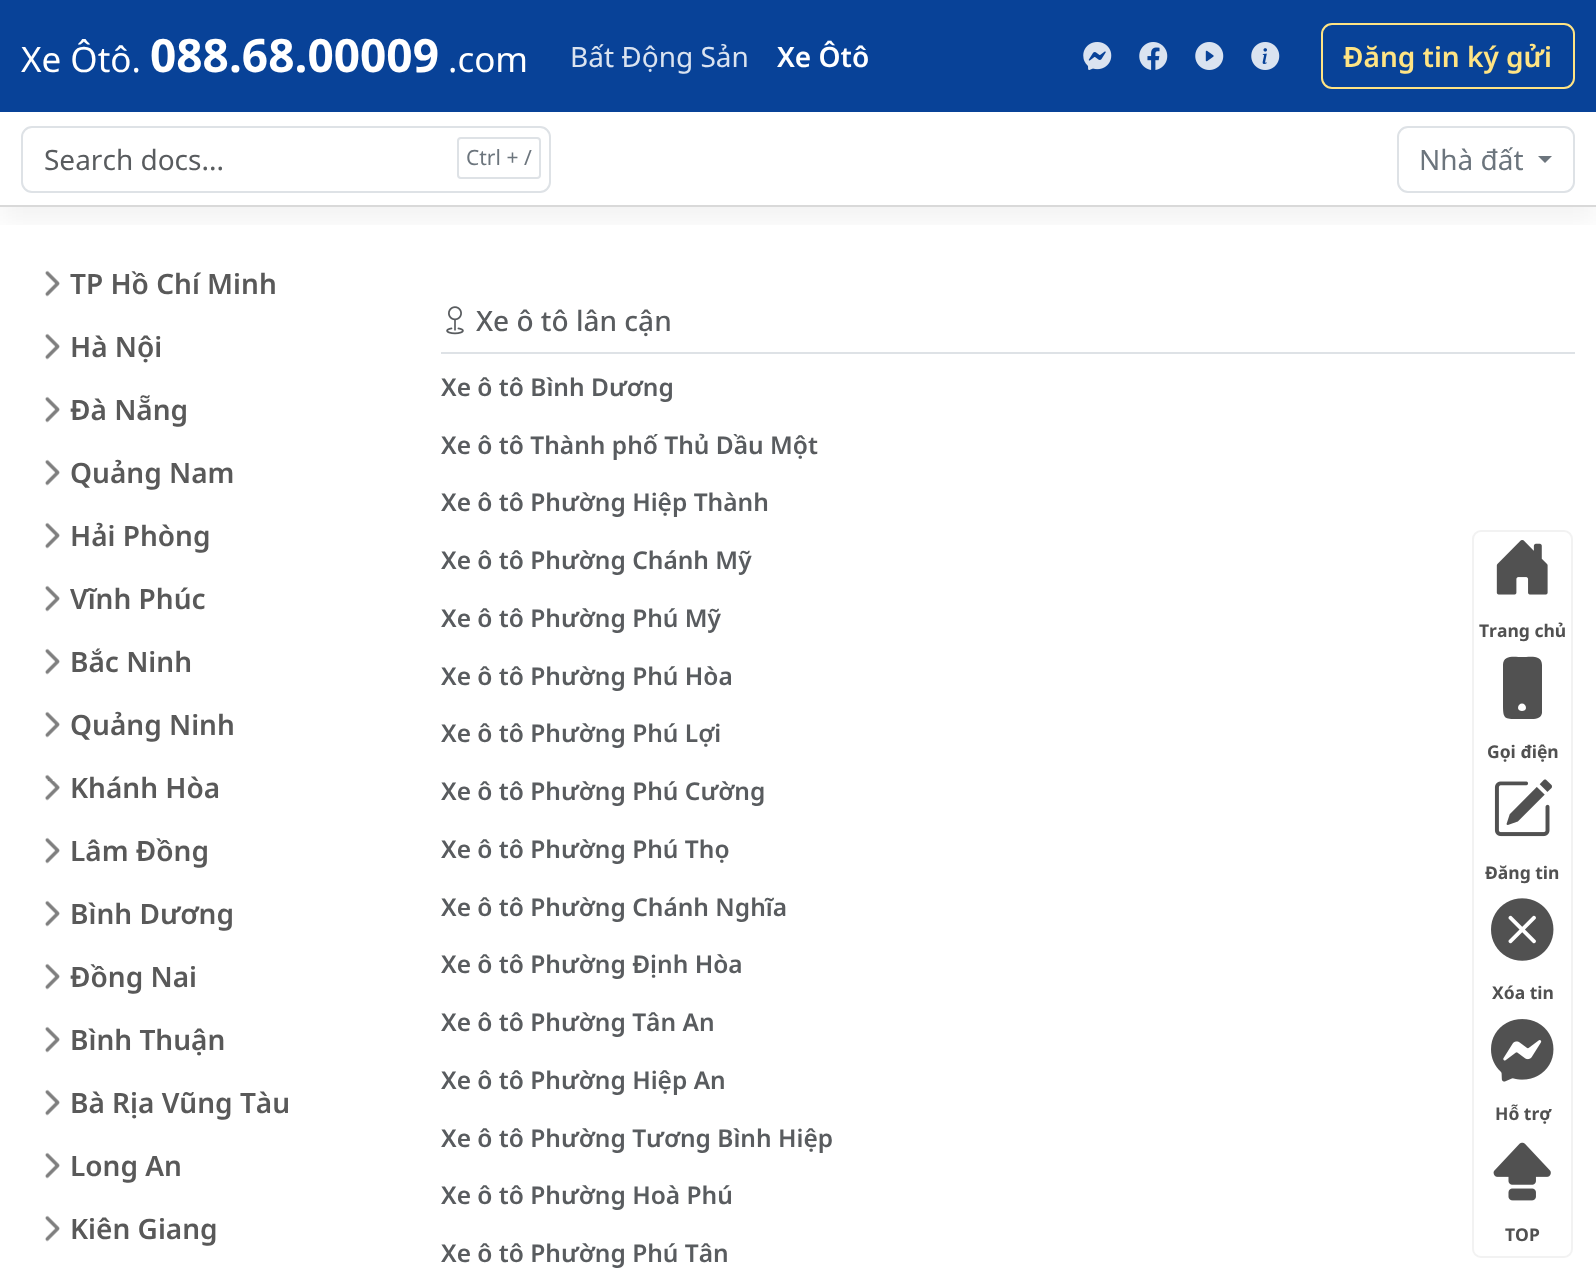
(async () => {
  const canvas = document.querySelector("canvas");
  canvas.width = 1596;
  canvas.height = 1275;
  const ctx = canvas.getContext("2d");
  ctx.miterLimit = 4;
  ctx.fontKerning = "none";
  async function loadImage(src) {
    const img = new Image();
    img.src = src;
    await img.decode();
    return img;
  }
  let path;

  ctx.fillStyle = "#ffffff";
  ctx.fillRect(0, 0, 1596, 1275);
  ctx.fillStyle = "#084298";
  ctx.fillRect(0, 0, 1596, 112);
  ctx.drawImage(await loadImage("img/1.png"), 1083, 42, 29, 28);
  ctx.drawImage(await loadImage("img/2.png"), 1139, 42, 29, 28);
  ctx.drawImage(await loadImage("img/3.png"), 1195, 42, 29, 28);
  ctx.drawImage(await loadImage("img/4.png"), 1251, 42, 29, 28);
  ctx.beginPath();
  ctx.roundRect(1322, 24, 252, 64, 10);
  ctx.strokeStyle = "#ffe484";
  ctx.lineWidth = 2;
  ctx.stroke();
  ctx.save();
  ctx.beginPath();
  ctx.rect(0, 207, 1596, 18);
  ctx.clip();
  ctx.fillStyle = "rgba(0, 0, 0, 0.05)";
  ctx.filter = "blur(14px)";
  ctx.beginPath();
  ctx.rect(0, 126, 1596, 95);
  ctx.fill();
  ctx.filter = "none";
  ctx.restore();
  ctx.fillStyle = "#d9d9d9";
  ctx.fillRect(0, 205, 1596, 2);
  ctx.beginPath();
  ctx.roundRect(22, 127, 528, 65, 10);
  ctx.strokeStyle = "#dee2e6";
  ctx.stroke();
  ctx.beginPath();
  ctx.roundRect(458, 138, 82, 40, 3);
  ctx.stroke();
  ctx.beginPath();
  ctx.roundRect(1398, 127, 176, 65, 10);
  ctx.stroke();
  ctx.fillStyle = "#6c757d";
  path = new Path2D("M1538 156H1552L1545 163Z");
  ctx.fill(path);
  ctx.drawImage(await loadImage("img/5.png"), 45, 270, 15, 27);
  ctx.drawImage(await loadImage("img/5.png"), 45, 333, 15, 27);
  ctx.drawImage(await loadImage("img/5.png"), 45, 396, 15, 27);
  ctx.drawImage(await loadImage("img/5.png"), 45, 459, 15, 27);
  ctx.drawImage(await loadImage("img/5.png"), 45, 522, 15, 27);
  ctx.drawImage(await loadImage("img/5.png"), 45, 585, 15, 27);
  ctx.drawImage(await loadImage("img/5.png"), 45, 648, 15, 27);
  ctx.drawImage(await loadImage("img/5.png"), 45, 711, 15, 27);
  ctx.drawImage(await loadImage("img/6.png"), 45, 774, 15, 27);
  ctx.drawImage(await loadImage("img/5.png"), 45, 837, 15, 27);
  ctx.drawImage(await loadImage("img/5.png"), 45, 900, 15, 27);
  ctx.drawImage(await loadImage("img/5.png"), 45, 963, 15, 27);
  ctx.drawImage(await loadImage("img/5.png"), 45, 1026, 15, 27);
  ctx.drawImage(await loadImage("img/5.png"), 45, 1089, 15, 27);
  ctx.drawImage(await loadImage("img/5.png"), 45, 1152, 15, 27);
  ctx.drawImage(await loadImage("img/5.png"), 45, 1215, 15, 27);
  ctx.fillStyle = "#dee2e6";
  ctx.fillRect(441, 352, 1134, 2);
  ctx.drawImage(await loadImage("img/7.png"), 446, 306, 18, 29);
  ctx.beginPath();
  ctx.roundRect(1473, 531, 99, 726, 8);
  ctx.strokeStyle = "#f2f2f2";
  ctx.stroke();
  ctx.drawImage(await loadImage("img/8.png"), 1496, 540, 52, 55);
  ctx.fillStyle = "#515151";
  path = new Path2D("M1503 665C1503 654 1516 657 1522 657C1529 657 1542 654 1542 665V713C1541 719 1535 719 1530 719H1518C1504 719 1503 719 1503 704ZM1526 708C1526 702 1518 702 1518 708C1518 712 1526 712 1526 708Z");
  ctx.fill(path);
  ctx.drawImage(await loadImage("img/9.png"), 1494, 779, 58, 58);
  ctx.drawImage(await loadImage("img/10.png"), 1491, 898, 63, 63);
  ctx.drawImage(await loadImage("img/11.png"), 1491, 1019, 63, 63);
  ctx.drawImage(await loadImage("img/12.png"), 1493, 1142, 58, 59);
  ctx.font = "35px Noto Sans";
  ctx.fillStyle = "#ffffff";
  ctx.fillText("Xe Ôtô.", 21, 72);
  ctx.font = "bold 46px Noto Sans";
  ctx.fillText("088.68.00009", 150, 72);
  ctx.font = "35px Noto Sans";
  ctx.fillText(".com", 448, 72);
  ctx.font = "28px Noto Sans";
  ctx.fillStyle = "#dae3f0";
  ctx.fillText("Bất Động Sản", 570, 67);
  ctx.font = "600 28px Noto Sans";
  ctx.fillStyle = "#ffffff";
  ctx.fillText("Xe Ôtô", 777, 67);
  ctx.fillStyle = "#ffe484";
  ctx.fillText("Đăng tin ký gửi", 1343, 67);
  ctx.font = "28px Noto Sans";
  ctx.fillStyle = "#595c5f";
  ctx.fillText("Search docs...", 44, 170);
  ctx.font = "21px Noto Sans";
  ctx.fillStyle = "#6c757d";
  ctx.fillText("Ctrl + /", 466, 165);
  ctx.font = "28px Noto Sans";
  ctx.fillText("Nhà đất", 1419, 170);
  ctx.font = "600 28px Noto Sans";
  ctx.fillStyle = "#595959";
  for (const [text, x, y] of [
    ["TP Hồ Chí Minh", 70, 294],
    ["Hà Nội", 70, 357],
    ["Đà Nẵng", 70, 420],
    ["Quảng Nam", 70, 483],
    ["Hải Phòng", 70, 546],
    ["Vĩnh Phúc", 70, 609],
    ["Bắc Ninh", 70, 672],
    ["Quảng Ninh", 70, 735],
    ["Khánh Hòa", 70, 798],
    ["Lâm Đồng", 70, 861],
    ["Bình Dương", 70, 924],
    ["Đồng Nai", 70, 987],
    ["Bình Thuận", 70, 1050],
    ["Bà Rịa Vũng Tàu", 70, 1113],
    ["Long An", 70, 1176],
    ["Kiên Giang", 70, 1239],
  ]) {
    ctx.fillText(text, x, y);
  }
  ctx.font = "500 28px Noto Sans";
  ctx.fillStyle = "#595c5f";
  ctx.fillText("Xe ô tô lân cận", 476, 331);
  ctx.font = "600 24.5px Noto Sans";
  for (const [text, x, y] of [
    ["Xe ô tô Bình Dương", 441, 396],
    ["Xe ô tô Thành phố Thủ Dầu Một", 441, 454],
    ["Xe ô tô Phường Hiệp Thành", 441, 511],
    ["Xe ô tô Phường Chánh Mỹ", 441, 569],
    ["Xe ô tô Phường Phú Mỹ", 441, 627],
    ["Xe ô tô Phường Phú Hòa", 441, 685],
    ["Xe ô tô Phường Phú Lợi", 441, 742],
    ["Xe ô tô Phường Phú Cường", 441, 800],
    ["Xe ô tô Phường Phú Thọ", 441, 858],
    ["Xe ô tô Phường Chánh Nghĩa", 441, 916],
    ["Xe ô tô Phường Định Hòa", 441, 973],
    ["Xe ô tô Phường Tân An", 441, 1031],
    ["Xe ô tô Phường Hiệp An", 441, 1089],
    ["Xe ô tô Phường Tương Bình Hiệp", 441, 1147],
    ["Xe ô tô Phường Hoà Phú", 441, 1204],
    ["Xe ô tô Phường Phú Tân", 441, 1262],
  ]) {
    ctx.fillText(text, x, y);
  }
  ctx.font = "bold 17.5px Noto Sans";
  ctx.fillStyle = "#515151";
  for (const [text, x, y] of [
    ["Trang chủ", 1479, 637],
    ["Gọi điện", 1487, 758],
    ["Đăng tin", 1485, 879],
    ["Xóa tin", 1492, 999],
    ["Hỗ trợ", 1495, 1120],
    ["TOP", 1505, 1241],
  ]) {
    ctx.fillText(text, x, y);
  }
})();
